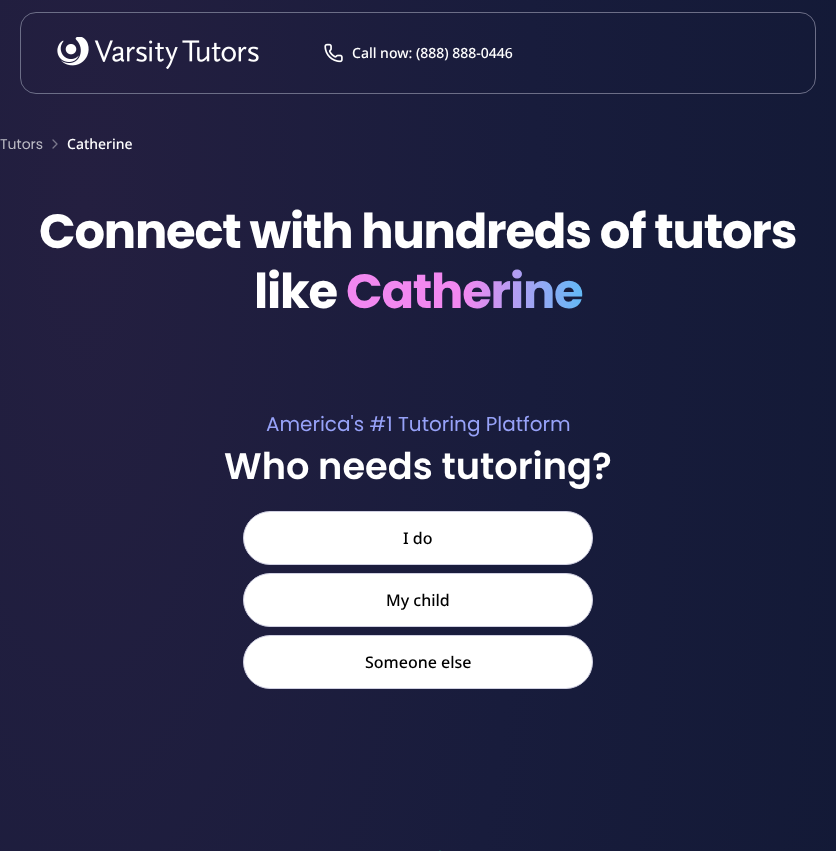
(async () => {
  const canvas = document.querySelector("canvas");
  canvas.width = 836;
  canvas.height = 851;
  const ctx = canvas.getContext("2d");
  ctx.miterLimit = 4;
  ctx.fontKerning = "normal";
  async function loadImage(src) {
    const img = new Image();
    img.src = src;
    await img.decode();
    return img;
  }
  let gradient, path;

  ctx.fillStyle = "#ffffff";
  ctx.fillRect(0, 0, 836, 851);
  gradient = ctx.createRadialGradient(84, 71.74, 0, 84, 71.74, 1003);
  gradient.addColorStop(0, "#241f40");
  gradient.addColorStop(0.45, "#181c3c");
  gradient.addColorStop(1, "#101833");
  ctx.fillStyle = gradient;
  ctx.beginPath();
  ctx.rect(0, 0, 836, 851);
  ctx.save();
  ctx.clip();
  ctx.scale(1, 2964 / 1003);
  ctx.fillRect(0, 0, 836, 288);
  ctx.restore();
  ctx.beginPath();
  ctx.roundRect(20.5, 12.5, 795, 81, 15.5);
  ctx.strokeStyle = "#6c6e87";
  ctx.stroke();
  ctx.drawImage(await loadImage("img/1.png"), 57, 37, 202, 32);
  ctx.drawImage(await loadImage("img/2.png"), 324, 43, 19, 20);
  path = new Path2D("M53 148L57 144L53 140");
  ctx.strokeStyle = "#7b798c";
  ctx.lineWidth = 1.3;
  ctx.lineCap = "round";
  ctx.lineJoin = "round";
  ctx.stroke(path);
  ctx.fillStyle = "#ffffff";
  ctx.beginPath();
  ctx.roundRect(243.5, 511.5, 349, 53, 26.5);
  ctx.fill();
  ctx.strokeStyle = "#cfcfe1";
  ctx.lineWidth = 1;
  ctx.lineJoin = "miter";
  ctx.stroke();
  ctx.beginPath();
  ctx.roundRect(243.5, 573.5, 349, 53, 26.5);
  ctx.fill();
  ctx.stroke();
  ctx.beginPath();
  ctx.roundRect(243.5, 635.5, 349, 53, 26.5);
  ctx.fill();
  ctx.stroke();
  ctx.fillStyle = "#163a49";
  ctx.fillRect(439, 850, 2, 1);
  ctx.font = "500 14px Noto Sans";
  ctx.fillStyle = "#ffffff";
  ctx.fillText("Call now: (888) 888-0446", 352, 58);
  ctx.font = "14px Poppins";
  ctx.fillStyle = "#bdbcc5";
  ctx.fillText("Tutors", 0, 149);
  ctx.font = "500 14px Noto Sans";
  ctx.fillStyle = "#ffffff";
  ctx.fillText("Catherine", 67, 149);
  ctx.letterSpacing = "-1.2px";
  ctx.font = "bold 48px Poppins";
  ctx.fillText("Connect with hundreds of tutors", 39, 248);
  ctx.fillText("like", 254, 308);
  gradient = ctx.createLinearGradient(346, 292, 582, 292);
  gradient.addColorStop(0, "#f188f0");
  gradient.addColorStop(0.5, "#f188f0");
  gradient.addColorStop(1, "#63b9f6");
  ctx.fillStyle = gradient;
  ctx.fillText("Catherine", 346, 308);
  ctx.letterSpacing = "0px";
  ctx.font = "20px Poppins";
  ctx.fillStyle = "#97a2f8";
  ctx.fillText("America's #1 Tutoring Platform", 266, 431);
  ctx.font = "600 36.75px Poppins";
  ctx.fillStyle = "#ffffff";
  ctx.fillText("Who needs tutoring?", 224, 479);
  ctx.font = "500 16px Noto Sans";
  ctx.fillStyle = "#000000";
  for (const [text, x, y] of [
    ["I do", 403, 544],
    ["My child", 386, 606],
    ["Someone else", 365, 668],
  ]) {
    ctx.fillText(text, x, y);
  }
})();
